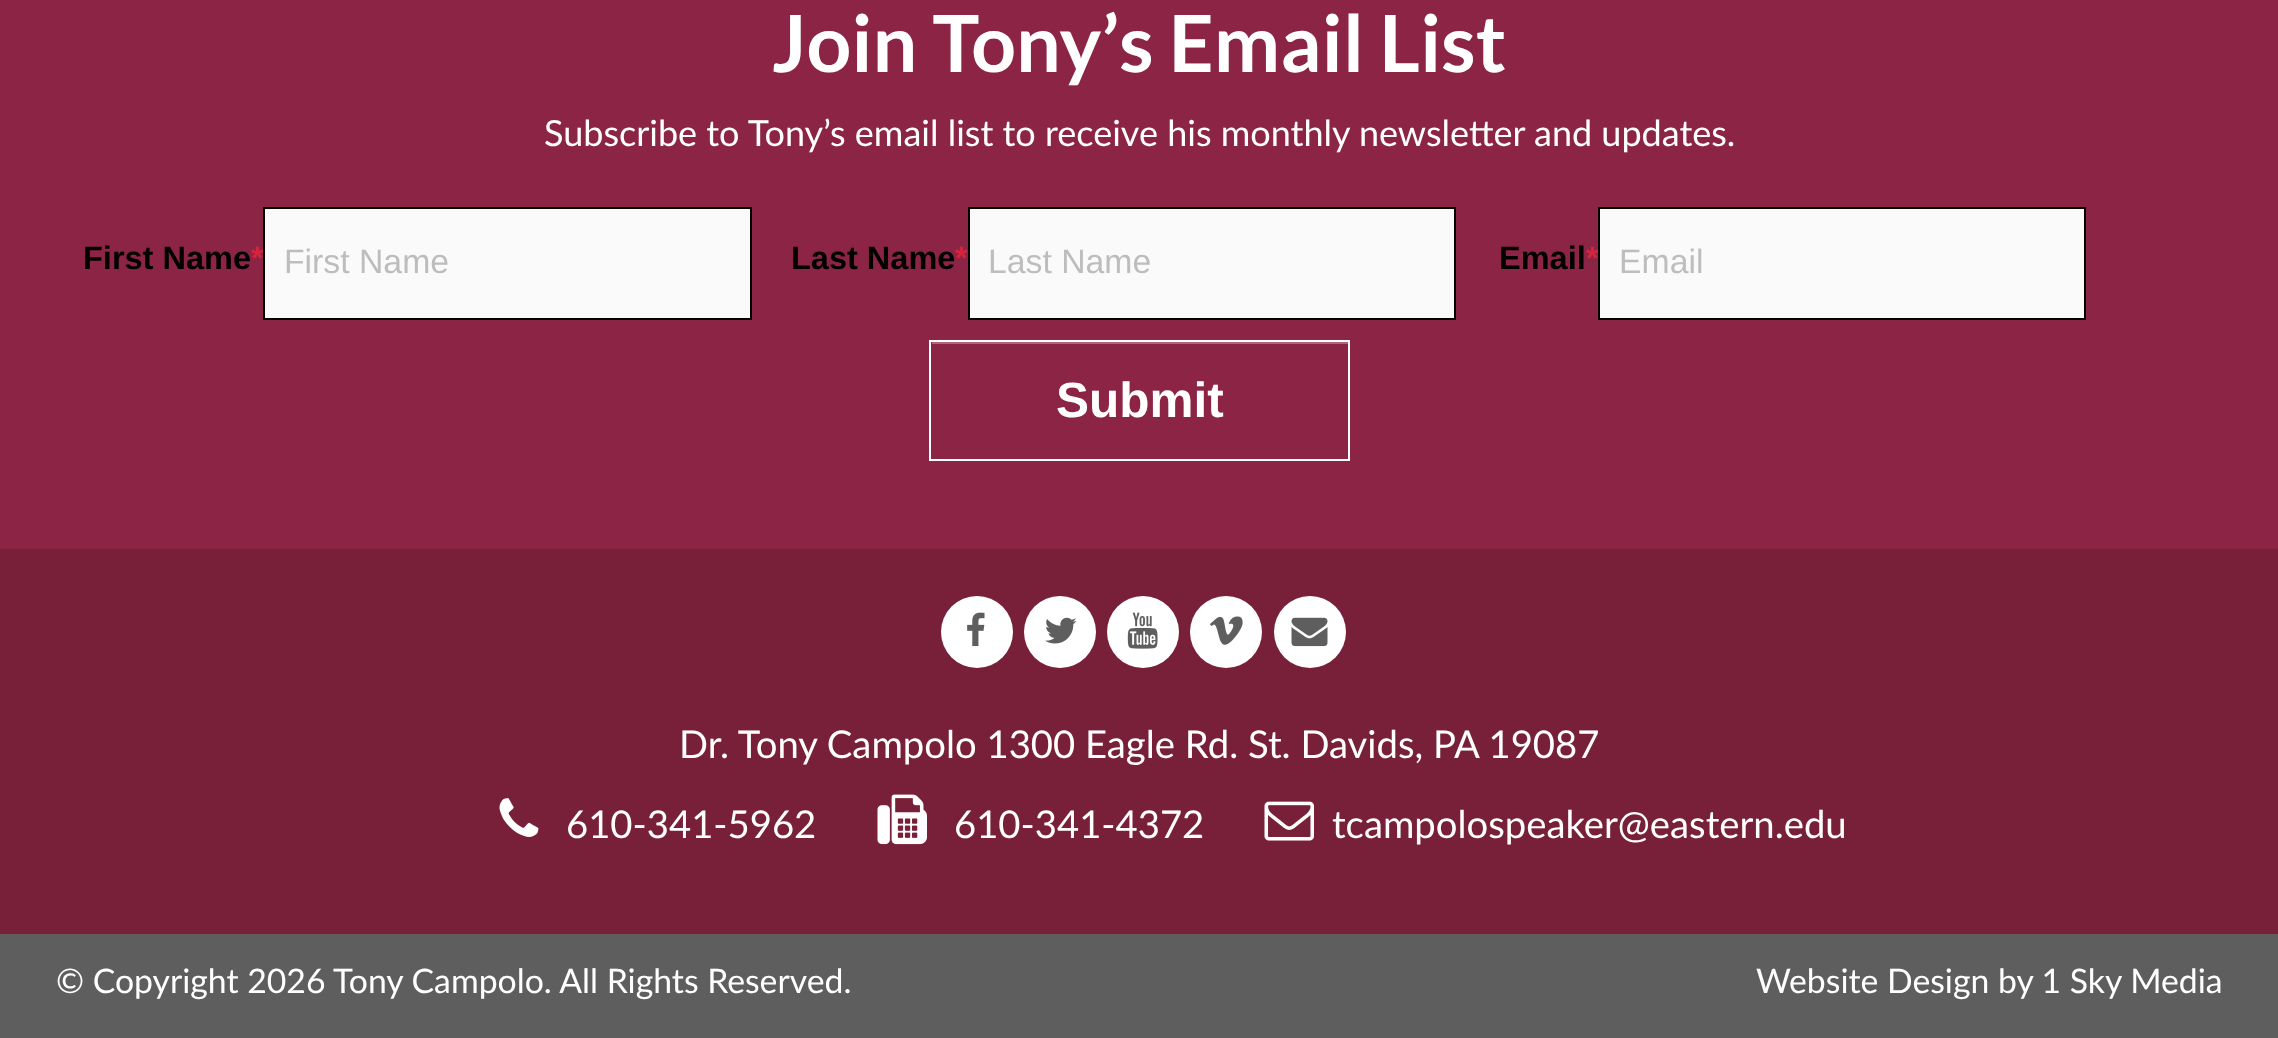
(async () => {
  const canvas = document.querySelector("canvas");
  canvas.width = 2278;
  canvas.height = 1038;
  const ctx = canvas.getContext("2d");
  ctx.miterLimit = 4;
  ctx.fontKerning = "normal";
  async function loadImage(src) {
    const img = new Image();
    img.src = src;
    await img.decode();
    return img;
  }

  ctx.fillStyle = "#782039";
  ctx.fillRect(0, 0, 2278, 1038);
  ctx.fillStyle = "#8c2445";
  ctx.fillRect(0, 0, 2278, 549);
  ctx.fillStyle = "#fafafa";
  ctx.beginPath();
  ctx.rect(969, 208, 486, 111);
  ctx.fill();
  ctx.strokeStyle = "#000000";
  ctx.lineWidth = 2;
  ctx.stroke();
  ctx.fillStyle = "#af667d";
  ctx.fillRect(932, 342, 416, 2);
  ctx.strokeStyle = "#ffffff";
  ctx.strokeRect(930, 341, 419, 119);
  ctx.fillStyle = "#ffffff";
  ctx.beginPath();
  ctx.arc(977, 632, 36, 0, Math.PI * 2);
  ctx.fill();
  ctx.drawImage(await loadImage("img/1.png"), 967, 612, 18, 35);
  ctx.beginPath();
  ctx.arc(1060, 632, 36, 0, Math.PI * 2);
  ctx.fill();
  ctx.drawImage(await loadImage("img/2.png"), 1045, 617, 32, 27);
  ctx.beginPath();
  ctx.arc(1143, 632, 36, 0, Math.PI * 2);
  ctx.fill();
  ctx.drawImage(await loadImage("img/3.png"), 1127, 612, 31, 37);
  ctx.beginPath();
  ctx.arc(1226, 632, 36, 0, Math.PI * 2);
  ctx.fill();
  ctx.drawImage(await loadImage("img/4.png"), 1210, 616, 33, 29);
  ctx.beginPath();
  ctx.arc(1310, 632, 36, 0, Math.PI * 2);
  ctx.fill();
  ctx.drawImage(await loadImage("img/5.png"), 1291, 617, 37, 30);
  ctx.drawImage(await loadImage("img/6.png"), 499, 798, 40, 39);
  ctx.drawImage(await loadImage("img/7.png"), 877, 794, 50, 51);
  ctx.drawImage(await loadImage("img/8.png"), 1264, 801, 50, 40);
  ctx.fillStyle = "#5e5e5e";
  ctx.fillRect(0, 934, 2278, 104);
  ctx.font = "bold 78.75px Lato";
  ctx.fillStyle = "#ffffff";
  ctx.fillText("Join Tony’s Email List", 772, 72);
  ctx.font = "36px Lato";
  ctx.fillText("Subscribe to Tony’s email list to receive his monthly newsletter and updates.", 544, 146);
  ctx.font = "bold 32.5px Liberation Sans";
  ctx.fillStyle = "#000000";
  ctx.fillText("First Name", 83, 269);
  ctx.fillStyle = "#d5243f";
  ctx.fillText("*", 251, 269);
  ctx.fillStyle = "#fafafa";
  ctx.beginPath();
  ctx.rect(264, 208, 487, 111);
  ctx.fill();
  ctx.strokeStyle = "#000000";
  ctx.stroke();
  ctx.font = "33.75px Liberation Sans";
  ctx.fillStyle = "#bdbdbf";
  ctx.fillText("First Name", 284, 273);
  ctx.font = "bold 32.5px Liberation Sans";
  ctx.fillStyle = "#000000";
  ctx.fillText("Last Name", 791, 269);
  ctx.fillStyle = "#d5243f";
  ctx.fillText("*", 955, 269);
  ctx.font = "33.75px Liberation Sans";
  ctx.fillStyle = "#bdbdbf";
  ctx.fillText("Last Name", 988, 273);
  ctx.font = "bold 32.5px Liberation Sans";
  ctx.fillStyle = "#000000";
  ctx.fillText("Email", 1499, 269);
  ctx.fillStyle = "#d5243f";
  ctx.fillText("*", 1586, 269);
  ctx.fillStyle = "#fafafa";
  ctx.beginPath();
  ctx.rect(1599, 208, 486, 111);
  ctx.fill();
  ctx.stroke();
  ctx.font = "33.75px Liberation Sans";
  ctx.fillStyle = "#bdbdbf";
  ctx.fillText("Email", 1619, 273);
  ctx.font = "bold 49.5px Liberation Sans";
  ctx.fillStyle = "#ffffff";
  ctx.fillText("Submit", 1056, 417);
  ctx.font = "38.25px Lato";
  for (const [text, x, y] of [
    ["Dr. Tony Campolo 1300 Eagle Rd. St. Davids, PA 19087", 679, 758],
    ["610-341-5962", 566, 838],
    ["610-341-4372", 954, 838],
    ["tcampolospeaker@eastern.edu", 1332, 838],
  ]) {
    ctx.fillText(text, x, y);
  }
  ctx.font = "33.75px Lato";
  for (const [text, x, y] of [
    ["© Copyright 2026", 56, 993],
    ["Tony Campolo. All Rights Reserved.", 333, 993],
    ["Website Design by 1 Sky Media", 1756, 993],
  ]) {
    ctx.fillText(text, x, y);
  }
})();
